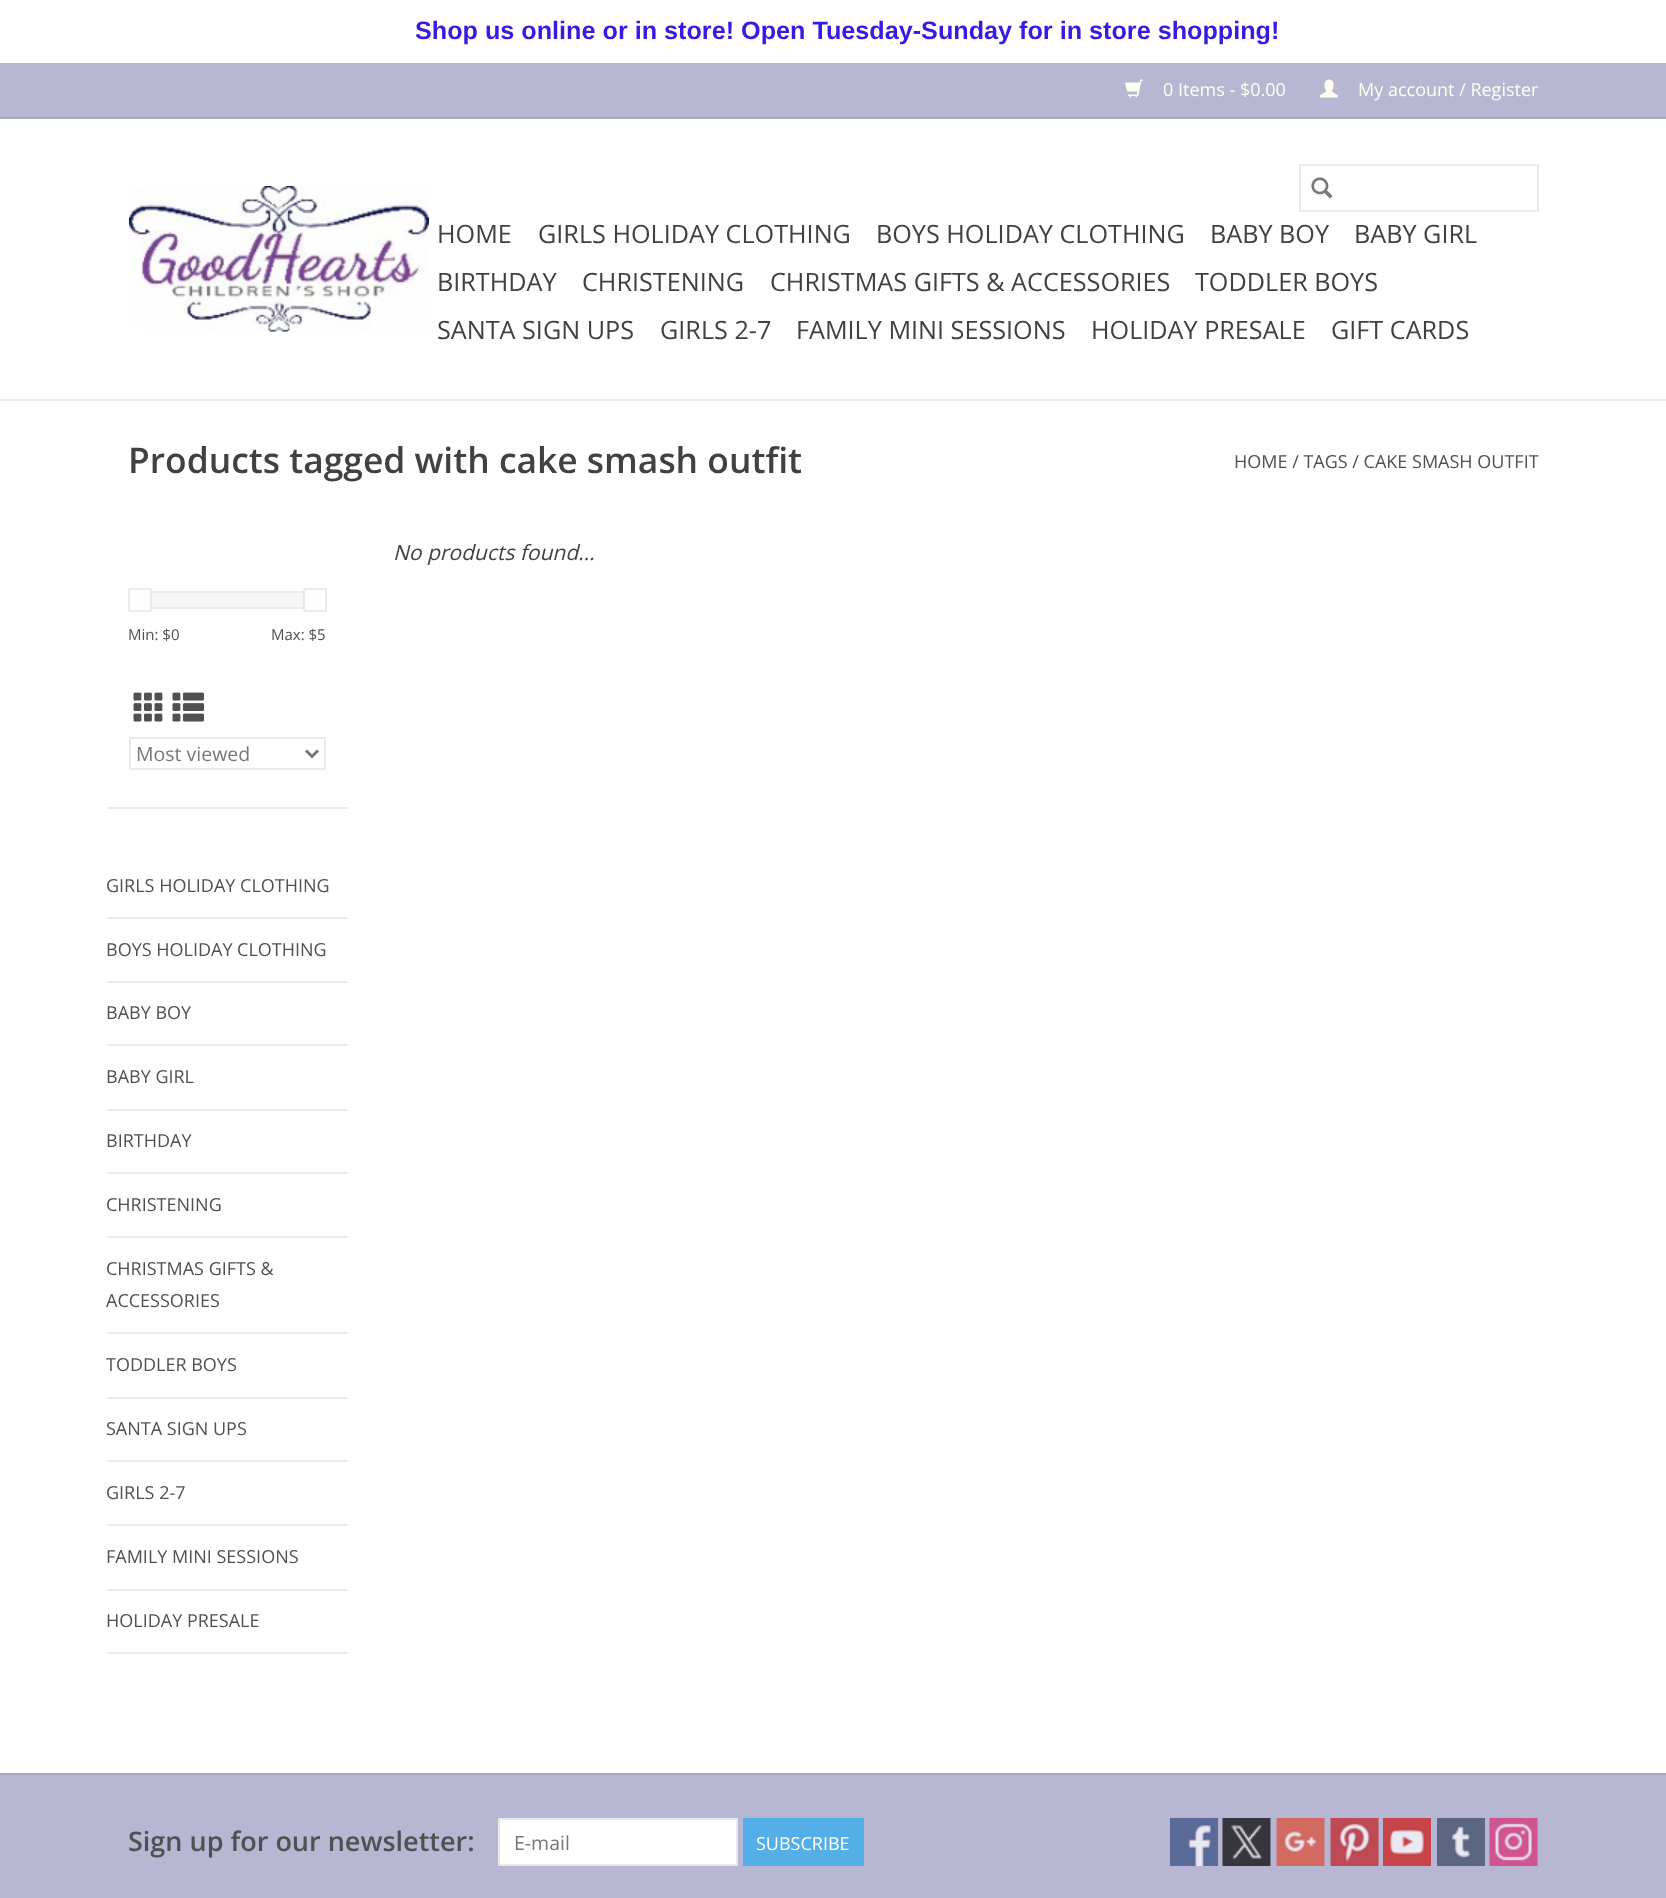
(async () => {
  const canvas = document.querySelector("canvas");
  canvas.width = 1666;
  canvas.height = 1898;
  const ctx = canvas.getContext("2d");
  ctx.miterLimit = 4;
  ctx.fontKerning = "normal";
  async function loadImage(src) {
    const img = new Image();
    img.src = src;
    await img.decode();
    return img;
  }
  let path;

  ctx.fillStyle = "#ffffff";
  ctx.fillRect(0, 0, 1666, 1898);
  for (const [x, y, w, h, color] of [
    [0, 399, 1666, 2, "#eaeaea"],
    [0, 63, 1666, 54, "#b7b6d3"],
    [0, 117, 1666, 2, "#aaa9c4"],
  ]) {
    ctx.fillStyle = color;
    ctx.fillRect(x, y, w, h);
  }
  ctx.drawImage(await loadImage("img/1.png"), 1125, 79, 18, 19);
  ctx.drawImage(await loadImage("img/2.png"), 1320, 79, 18, 19);
  ctx.drawImage(await loadImage("img/3.png"), 129, 186, 300, 146);
  ctx.strokeStyle = "#eaeaea";
  ctx.lineWidth = 2;
  ctx.strokeRect(1300, 165, 238, 46);
  ctx.drawImage(await loadImage("img/4.png"), 1311, 177, 22, 22);
  ctx.fillStyle = "#eaeaea";
  ctx.fillRect(107, 807, 241, 2);
  ctx.fillStyle = "#f7f7f7";
  ctx.fillRect(152, 593, 151, 14);
  ctx.strokeRect(142, 592, 174, 16);
  ctx.fillStyle = "#fefefe";
  ctx.fillRect(141, 591, 9, 18);
  ctx.strokeRect(129, 589, 22, 22);
  ctx.fillRect(305, 591, 12, 18);
  ctx.strokeRect(304, 589, 22, 22);
  ctx.drawImage(await loadImage("img/5.png"), 133, 692, 30, 30);
  ctx.drawImage(await loadImage("img/6.png"), 172, 692, 32, 30);
  ctx.strokeRect(130, 738, 195, 31);
  path = new Path2D("M306 750.5L312 756.5L318 750.5");
  ctx.strokeStyle = "#777777";
  ctx.lineWidth = 3;
  ctx.stroke(path);
  for (const [x, y, w, h, color] of [
    [107, 917, 241, 2, "#eaeaea"],
    [107, 981, 241, 2, "#eaeaea"],
    [107, 1044, 241, 2, "#eaeaea"],
    [107, 1109, 241, 2, "#eaeaea"],
    [107, 1172, 241, 2, "#eaeaea"],
    [107, 1236, 241, 2, "#eaeaea"],
    [107, 1332, 241, 2, "#eaeaea"],
    [107, 1397, 241, 2, "#eaeaea"],
    [107, 1460, 241, 2, "#eaeaea"],
    [107, 1524, 241, 2, "#eaeaea"],
    [107, 1589, 241, 2, "#eaeaea"],
    [107, 1652, 241, 2, "#eaeaea"],
    [0, 1775, 1666, 123, "#b7b6d3"],
    [0, 1773, 1666, 2, "#a7a7c1"],
  ]) {
    ctx.fillStyle = color;
    ctx.fillRect(x, y, w, h);
  }
  ctx.fillStyle = "#ffffff";
  ctx.beginPath();
  ctx.rect(499, 1819, 238, 46);
  ctx.fill();
  ctx.strokeStyle = "#e9e9e9";
  ctx.lineWidth = 2;
  ctx.stroke();
  ctx.fillStyle = "#54afe9";
  ctx.fillRect(743, 1818, 121, 48);
  ctx.drawImage(await loadImage("img/7.png"), 1170, 1818, 48, 48);
  ctx.drawImage(await loadImage("img/8.png"), 1222, 1818, 49, 48);
  ctx.drawImage(await loadImage("img/9.png"), 1276, 1818, 49, 48);
  ctx.drawImage(await loadImage("img/10.png"), 1330, 1818, 49, 48);
  ctx.drawImage(await loadImage("img/11.png"), 1383, 1818, 48, 48);
  ctx.drawImage(await loadImage("img/12.png"), 1437, 1818, 48, 48);
  ctx.drawImage(await loadImage("img/13.png"), 1489, 1818, 49, 48);
  ctx.font = "bold 25.2px Liberation Sans";
  ctx.fillStyle = "#361be3";
  ctx.fillText("Shop us online or in store! Open Tuesday-Sunday for in store shopping!", 415, 39);
  ctx.font = "18px Open Sans";
  ctx.fillStyle = "#fffff0";
  ctx.fillText("0 Items - $0.00", 1163, 96);
  ctx.fillText("My account / Register", 1358, 96);
  ctx.font = "25.2px Open Sans";
  ctx.fillStyle = "#414141";
  for (const [text, x, y] of [
    ["HOME", 437, 243],
    ["GIRLS HOLIDAY CLOTHING", 538, 243],
    ["BOYS HOLIDAY CLOTHING", 876, 243],
    ["BABY BOY", 1210, 243],
    ["BABY GIRL", 1354, 243],
    ["BIRTHDAY", 437, 291],
    ["CHRISTENING", 582, 291],
    ["CHRISTMAS GIFTS & ACCESSORIES", 770, 291],
    ["TODDLER BOYS", 1195, 291],
    ["SANTA SIGN UPS", 437, 339],
    ["GIRLS 2-7", 660, 339],
    ["FAMILY MINI SESSIONS", 796, 339],
    ["HOLIDAY PRESALE", 1091, 339],
    ["GIFT CARDS", 1331, 339],
  ]) {
    ctx.fillText(text, x, y);
  }
  ctx.font = "600 35.4px Open Sans";
  ctx.fillText("Products tagged with cake smash outfit", 128, 473);
  ctx.font = "18px Open Sans";
  ctx.fillStyle = "#505050";
  ctx.fillText("HOME / TAGS / CAKE SMASH OUTFIT", 1234, 468);
  ctx.font = "italic 21px Open Sans";
  ctx.fillStyle = "#414141";
  ctx.fillText("No products found...", 393, 560);
  ctx.font = "15px Open Sans";
  ctx.fillStyle = "#505050";
  ctx.fillText("Min: $0", 128, 640);
  ctx.fillText("Max: $5", 271, 640);
  ctx.font = "19.5px Open Sans";
  ctx.fillStyle = "#777777";
  ctx.fillText("Most viewed", 136, 761);
  ctx.font = "18px Open Sans";
  ctx.fillStyle = "#505050";
  for (const [text, x, y] of [
    ["GIRLS HOLIDAY CLOTHING", 106, 892],
    ["BOYS HOLIDAY CLOTHING", 106, 956],
    ["BABY BOY", 106, 1019],
    ["BABY GIRL", 106, 1083],
    ["BIRTHDAY", 106, 1147],
    ["CHRISTENING", 106, 1211],
    ["CHRISTMAS GIFTS &", 106, 1275],
    ["ACCESSORIES", 106, 1307],
    ["TODDLER BOYS", 106, 1371],
    ["SANTA SIGN UPS", 106, 1435],
    ["GIRLS 2-7", 106, 1499],
    ["FAMILY MINI SESSIONS", 106, 1563],
    ["HOLIDAY PRESALE", 106, 1627],
  ]) {
    ctx.fillText(text, x, y);
  }
  ctx.font = "600 27px Open Sans";
  ctx.fillText("Sign up for our newsletter:", 128, 1851);
  ctx.font = "19.5px Open Sans";
  ctx.fillStyle = "#777777";
  ctx.fillText("E-mail", 514, 1850);
  ctx.font = "18px Open Sans";
  ctx.fillStyle = "#ffffff";
  ctx.fillText("SUBSCRIBE", 756, 1850);
})();
